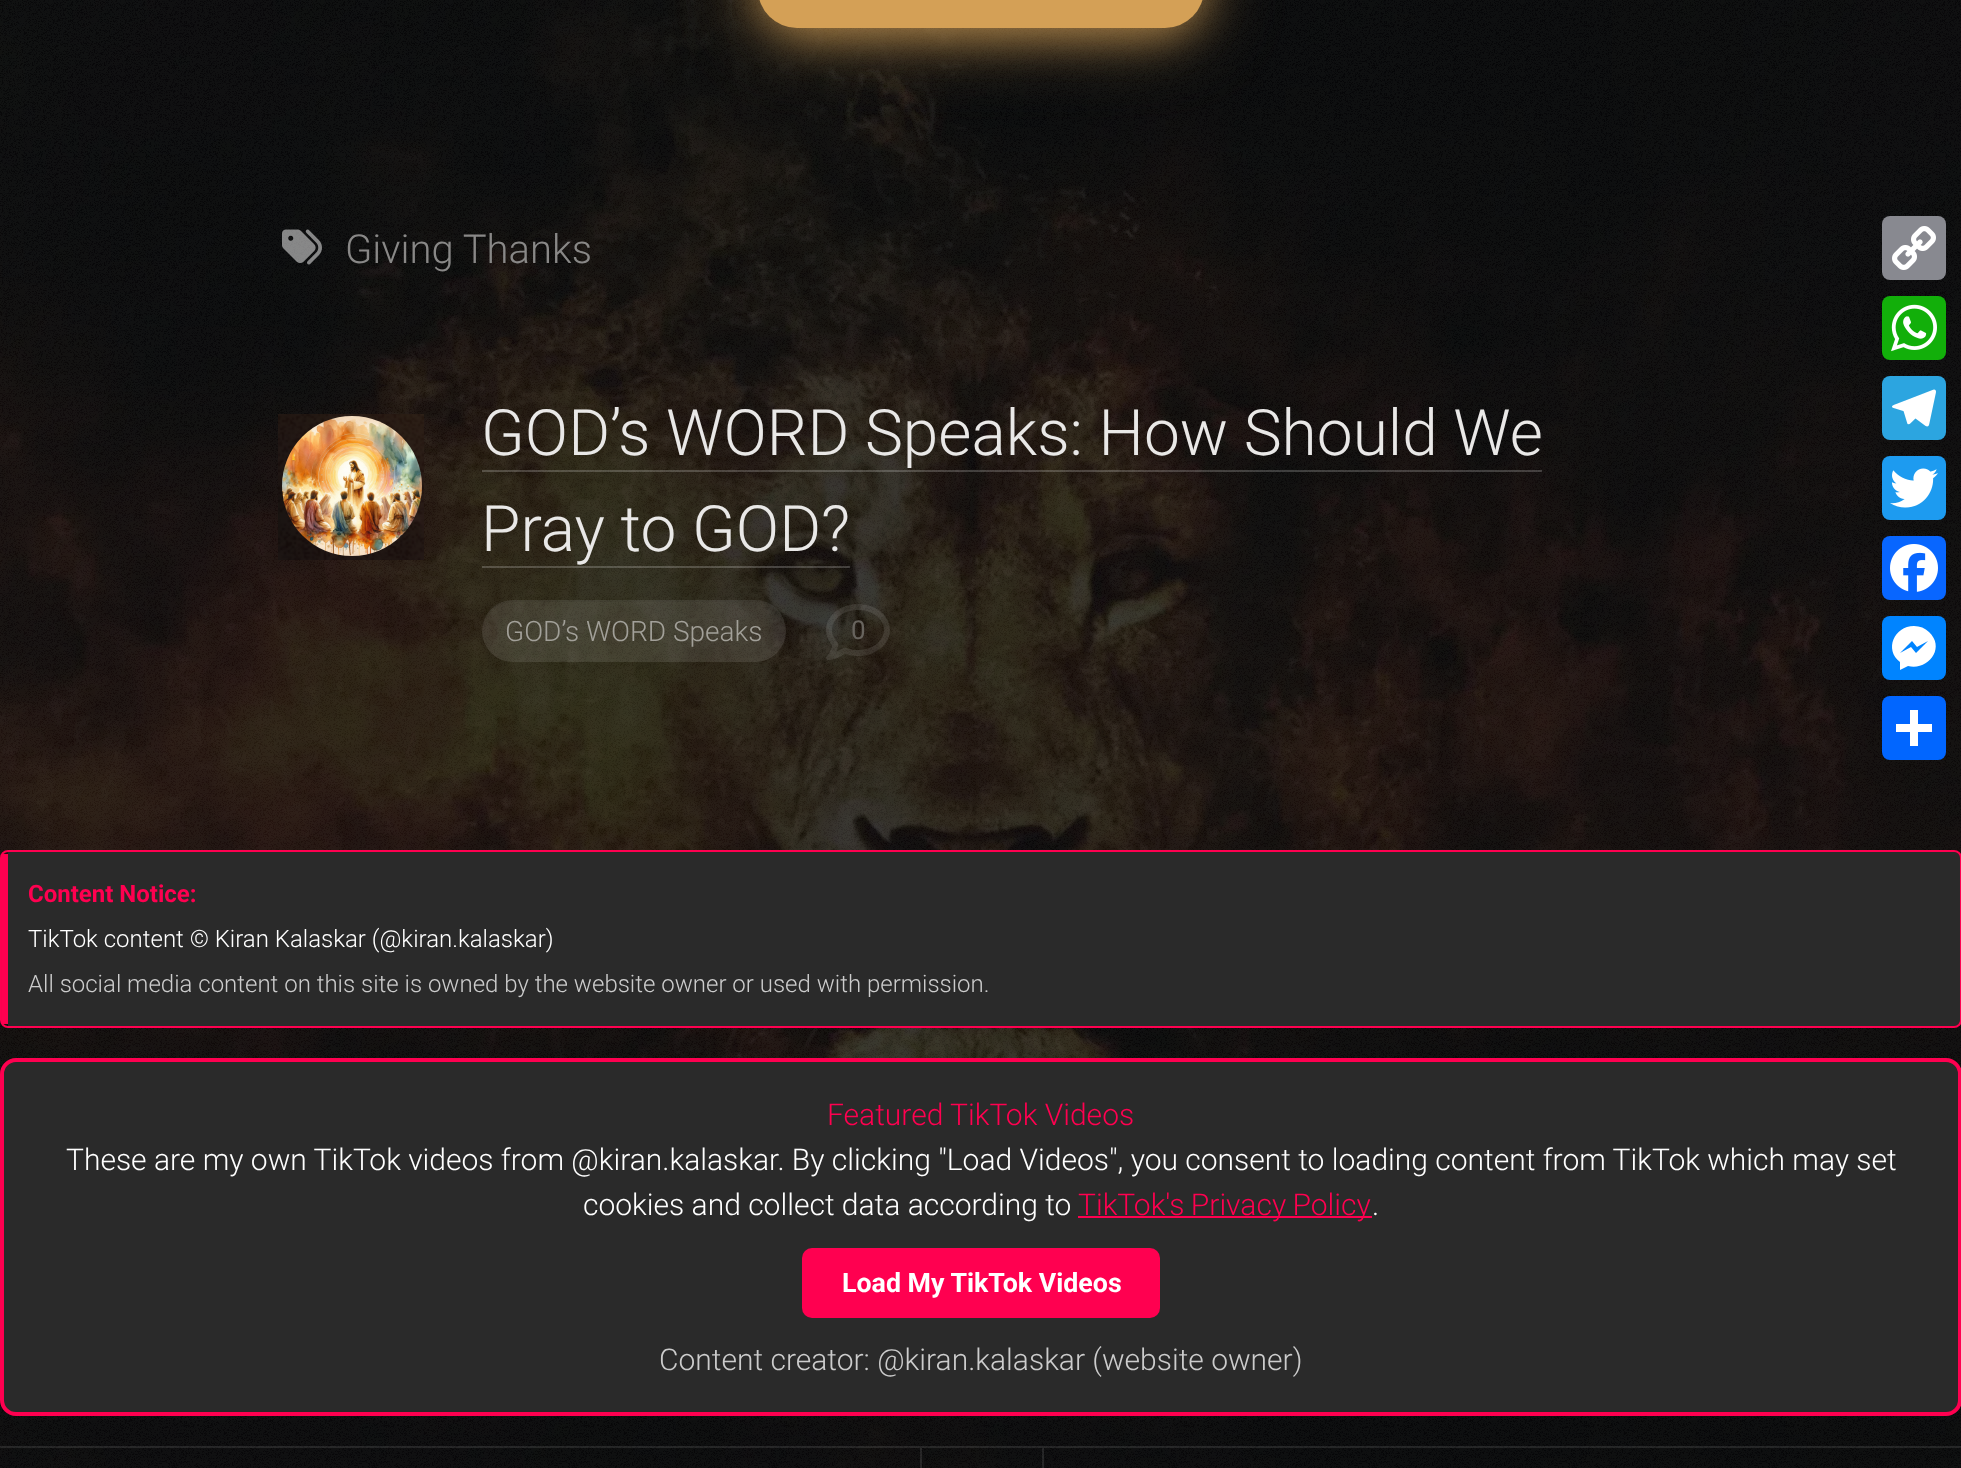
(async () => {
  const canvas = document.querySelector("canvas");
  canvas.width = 1961;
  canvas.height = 1468;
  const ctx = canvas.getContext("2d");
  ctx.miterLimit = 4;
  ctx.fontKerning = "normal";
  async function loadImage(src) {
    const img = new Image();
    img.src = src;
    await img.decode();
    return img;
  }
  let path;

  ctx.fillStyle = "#ffffff";
  ctx.fillRect(0, 0, 1961, 1468);
  ctx.drawImage(await loadImage("img/1.png"), 0, 0, 1961, 1468);
  ctx.fillStyle = "rgba(212, 160, 86, 0.6)";
  ctx.filter = "blur(40px)";
  ctx.beginPath();
  ctx.roundRect(758, -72, 446, 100, 50);
  ctx.fill();
  ctx.filter = "none";
  ctx.filter = "blur(20px)";
  ctx.beginPath();
  ctx.roundRect(758, -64, 446, 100, 50);
  ctx.fill();
  ctx.filter = "none";
  ctx.fillStyle = "#d4a056";
  ctx.beginPath();
  ctx.roundRect(758, -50, 446, 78, 50);
  ctx.fill();
  ctx.drawImage(await loadImage("img/2.png"), 282, 229, 40, 36);
  ctx.drawImage(await loadImage("img/3.png"), 278, 414, 146, 146);
  ctx.fillStyle = "rgba(255, 255, 255, 0.2)";
  ctx.fillRect(482, 470, 1060, 2);
  ctx.fillRect(482, 566, 368, 2);
  ctx.fillStyle = "rgba(255, 255, 255, 0.1)";
  ctx.beginPath();
  ctx.roundRect(482, 600, 304, 62, 31);
  ctx.fill();
  ctx.fillStyle = "rgba(0, 0, 0, 0.05)";
  path = new Path2D("M513 602H755C772 602 785 615 786 632V631C786 614 772 600 755 600H513C496 600 482 614 482 631V632C483 615 496 602 513 602Z");
  ctx.fill(path);
  ctx.drawImage(await loadImage("img/4.png"), 826, 604, 64, 56);
  ctx.fillStyle = "#2a2a2a";
  path = new Path2D("M8 852H1954C1957 852 1960 855 1960 858V1020C1960 1023 1957 1026 1954 1026H8Z");
  ctx.fill(path);
  ctx.beginPath();
  ctx.roundRect(1, 851, 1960, 176, 7);
  ctx.strokeStyle = "#ff0050";
  ctx.lineWidth = 2;
  ctx.stroke();
  ctx.fillStyle = "#ff0050";
  ctx.fillRect(2, 854, 6, 170);
  ctx.fillStyle = "#2a2a2a";
  ctx.beginPath();
  ctx.roundRect(2, 1060, 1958, 354, 14);
  ctx.fill();
  ctx.lineWidth = 4;
  ctx.stroke();
  ctx.fillStyle = "#ff0050";
  ctx.fillRect(1078, 1216, 294, 2);
  ctx.beginPath();
  ctx.roundRect(802, 1248, 358, 70, 10);
  ctx.fill();
  ctx.fillStyle = "rgba(255, 255, 255, 0.1)";
  ctx.fillRect(0, 1446, 1961, 2);
  path = new Path2D("M920 1448H1044V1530C1044 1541 1035 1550 1024 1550H940C929 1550 920 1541 920 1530ZM922 1448H1042V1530C1042 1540 1034 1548 1024 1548H940C930 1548 922 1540 922 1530Z");
  ctx.fill(path, "evenodd");
  ctx.fillStyle = "#888990";
  ctx.beginPath();
  ctx.roundRect(1882, 216, 64, 64, 8);
  ctx.fill();
  ctx.drawImage(await loadImage("img/5.png"), 1892, 226, 44, 44);
  ctx.fillStyle = "#12af0a";
  ctx.beginPath();
  ctx.roundRect(1882, 296, 64, 64, 8);
  ctx.fill();
  ctx.drawImage(await loadImage("img/6.png"), 1891, 304, 46, 48);
  ctx.fillStyle = "#2ca5e0";
  ctx.beginPath();
  ctx.roundRect(1882, 376, 64, 64, 8);
  ctx.fill();
  ctx.drawImage(await loadImage("img/7.png"), 1892, 389, 44, 38);
  ctx.fillStyle = "#1d9bf0";
  ctx.beginPath();
  ctx.roundRect(1882, 456, 64, 64, 8);
  ctx.fill();
  ctx.drawImage(await loadImage("img/8.png"), 1890, 468, 48, 40);
  ctx.fillStyle = "#0866ff";
  ctx.beginPath();
  ctx.roundRect(1882, 536, 64, 64, 8);
  ctx.fill();
  ctx.drawImage(await loadImage("img/9.png"), 1890, 544, 48, 48);
  ctx.fillStyle = "#0084ff";
  ctx.beginPath();
  ctx.roundRect(1882, 616, 64, 64, 8);
  ctx.fill();
  ctx.fillStyle = "#ffffff";
  path = new Path2D("M1914 626C1894 626 1884 650 1900 662V670L1908 666C1928 671 1946 648 1929 632C1925 628 1920 626 1914 626M1916 653L1911 647L1900 653L1912 641L1917 647L1928 641Z");
  ctx.fill(path);
  ctx.fillStyle = "#0166ff";
  ctx.beginPath();
  ctx.roundRect(1882, 696, 64, 64, 8);
  ctx.fill();
  ctx.fillStyle = "#ffffff";
  ctx.fillRect(1910, 710, 8, 36);
  ctx.fillRect(1896, 724, 36, 8);
  ctx.font = "300 40px Roboto";
  ctx.fillStyle = "#898887";
  ctx.fillText("Giving Thanks", 345, 263);
  ctx.font = "300 64px Roboto";
  ctx.fillStyle = "#e9e8e7";
  ctx.fillText("GOD’s WORD Speaks: How Should We", 481, 455);
  ctx.fillText("Pray to GOD?", 481, 551);
  ctx.font = "300 28px Roboto";
  ctx.fillStyle = "#a2a099";
  ctx.fillText("GOD’s WORD Speaks", 505, 641);
  ctx.font = "26px Roboto";
  ctx.fillStyle = "#68645e";
  ctx.fillText("0", 851, 639);
  ctx.font = "bold 24px Roboto";
  ctx.fillStyle = "#ff0050";
  ctx.fillText("Content Notice:", 28, 902);
  ctx.font = "300 24px Roboto";
  ctx.fillStyle = "#ffffff";
  ctx.fillText("TikTok content © Kiran Kalaskar (@kiran.kalaskar)", 28, 947);
  ctx.fillStyle = "#cccccc";
  ctx.fillText("All social media content on this site is owned by the website owner or used with permission.", 28, 992);
  ctx.font = "300 30px Roboto";
  ctx.fillStyle = "#ff0050";
  ctx.fillText("Featured TikTok Videos", 827, 1125);
  ctx.fillStyle = "#ffffff";
  ctx.fillText("These are my own TikTok videos from @kiran.kalaskar. By clicking \"Load Videos\", you consent to loading content from TikTok which may set", 66, 1170);
  ctx.fillText("cookies and collect data according to", 583, 1215);
  ctx.wordSpacing = "-1px";
  ctx.fillStyle = "#ff0050";
  ctx.fillText("TikTok's Privacy Policy", 1078, 1215);
  ctx.wordSpacing = "0px";
  ctx.fillStyle = "#ffffff";
  ctx.fillText(".", 1372, 1215);
  ctx.font = "bold 26.75px Roboto";
  ctx.fillText("Load My TikTok Videos", 842, 1292);
  ctx.font = "300 30px Roboto";
  ctx.fillStyle = "#cccccc";
  ctx.fillText("Content creator: @kiran.kalaskar (website owner)", 659, 1370);
})();
